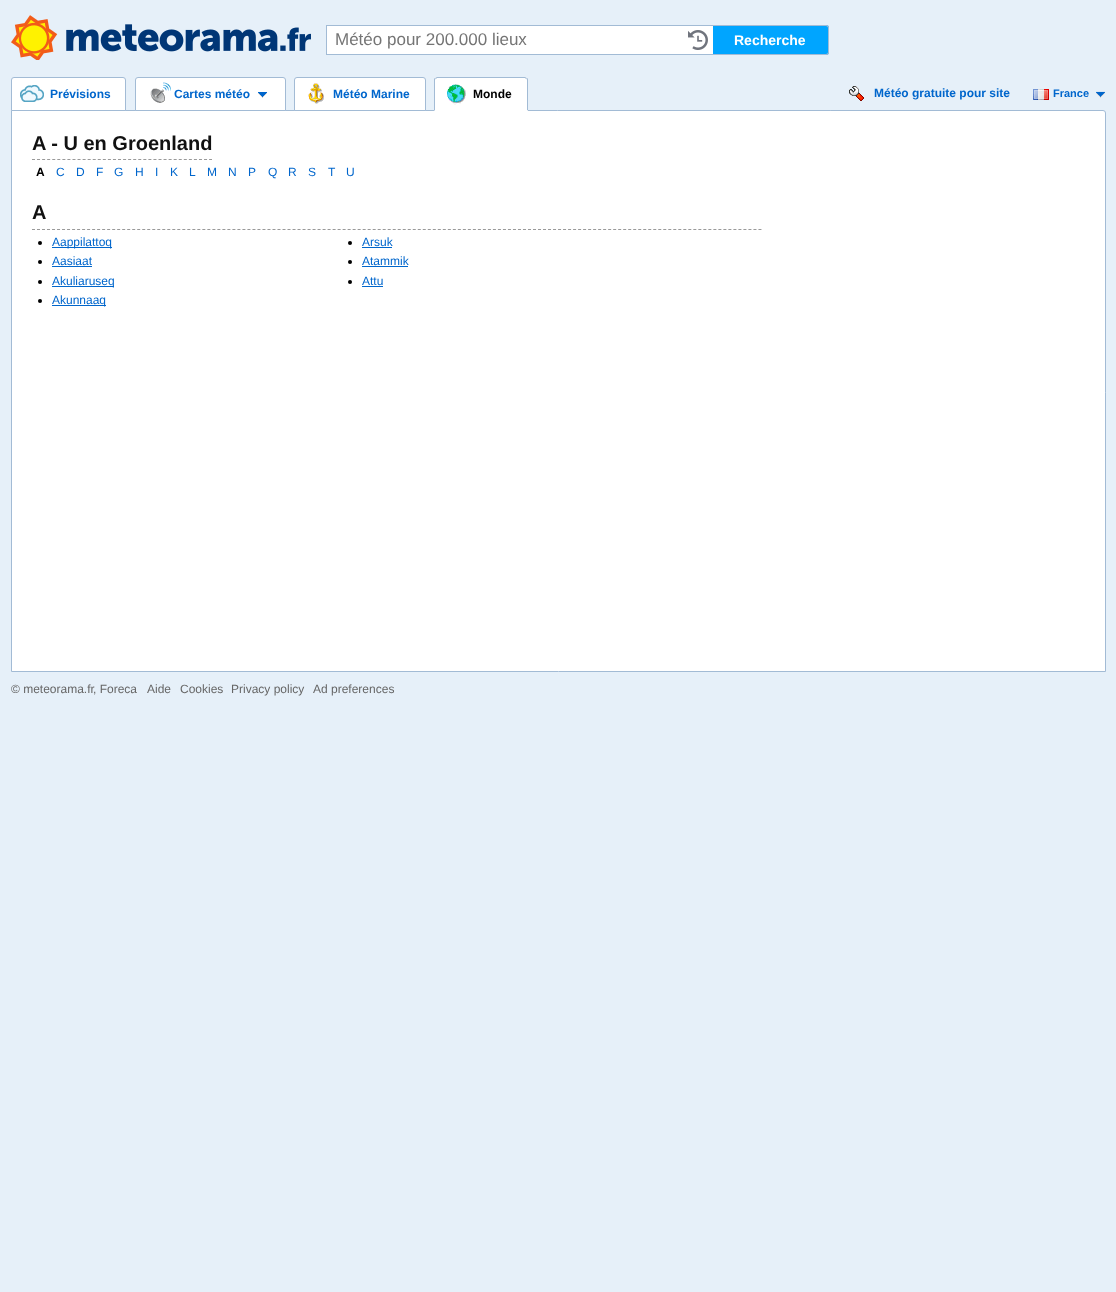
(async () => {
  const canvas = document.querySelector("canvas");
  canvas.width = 1116;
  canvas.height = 1292;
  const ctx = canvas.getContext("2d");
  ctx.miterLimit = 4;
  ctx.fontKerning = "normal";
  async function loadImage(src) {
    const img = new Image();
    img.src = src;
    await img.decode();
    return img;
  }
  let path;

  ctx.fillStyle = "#e6f0f9";
  ctx.fillRect(0, 0, 1116, 1292);
  ctx.drawImage(await loadImage("img/1.png"), 11, 15, 300, 45);
  for (const [x, y, w, h, color] of [
    [327, 26, 386, 28, "#ffffff"],
    [326, 25, 387, 1, "#a2bbd5"],
    [326, 54, 387, 1, "#a2bbd5"],
    [326, 25, 1, 30, "#a2bbd5"],
  ]) {
    ctx.fillStyle = color;
    ctx.fillRect(x, y, w, h);
  }
  ctx.drawImage(await loadImage("img/2.png"), 688, 30, 20, 20);
  ctx.fillStyle = "#00a5ff";
  ctx.beginPath();
  ctx.roundRect(713, 25, 116, 30, [0, 3, 3, 0]);
  ctx.fill();
  ctx.fillStyle = "#a2bbd5";
  path = new Path2D("M713 25H826C828 25 829 26 829 28V52C829 54 828 55 826 55H713ZM713 26H826C827 26 828 27 828 28V52C828 53 827 54 826 54H713Z");
  ctx.fill(path, "evenodd");
  ctx.fillStyle = "#ffffff";
  ctx.beginPath();
  ctx.roundRect(11.5, 110.5, 1094, 561, [0, 2.5, 0, 0]);
  ctx.fill();
  ctx.strokeStyle = "#a2bbd5";
  ctx.stroke();
  ctx.beginPath();
  ctx.roundRect(11.5, 77.5, 114, 33, [2.5, 2.5, 0, 0]);
  ctx.fill();
  ctx.stroke();
  ctx.drawImage(await loadImage("img/3.png"), 20, 85, 24, 17);
  ctx.beginPath();
  ctx.roundRect(135.5, 77.5, 150, 33, [2.5, 2.5, 0, 0]);
  ctx.fill();
  ctx.stroke();
  ctx.drawImage(await loadImage("img/4.png"), 150, 82, 21, 21);
  ctx.drawImage(await loadImage("img/5.png"), 258, 92, 9, 6);
  ctx.beginPath();
  ctx.roundRect(294.5, 77.5, 131, 33, [2.5, 2.5, 0, 0]);
  ctx.fill();
  ctx.stroke();
  ctx.drawImage(await loadImage("img/6.png"), 308, 83, 16, 21);
  ctx.beginPath();
  ctx.roundRect(434, 77, 94, 34, [3, 3, 0, 0]);
  ctx.fill();
  ctx.fillStyle = "#a2bbd5";
  path = new Path2D("M437 77L435 78L436 79L437 78H525L526 79L527 78L525 77Z");
  ctx.fill(path);
  path = new Path2D("M528 111V80C528 79 528 78 527 78L526.5 78.5L527 80V110Z");
  ctx.fill(path);
  ctx.fillStyle = "#ffffff";
  path = new Path2D("M528 111L527 110H435L434 111Z");
  ctx.fill(path);
  ctx.fillStyle = "#a2bbd5";
  path = new Path2D("M434 111L435 110V80L435.5 78.5L435 78C434 78 434 79 434 80Z");
  ctx.fill(path);
  ctx.drawImage(await loadImage("img/7.png"), 447, 84, 19, 21);
  ctx.drawImage(await loadImage("img/8.png"), 849, 86, 15, 15);
  ctx.drawImage(await loadImage("img/9.png"), 1033, 89, 16, 11);
  ctx.drawImage(await loadImage("img/10.png"), 1096, 91, 9, 7);
  path = new Path2D("M32 159.5H212");
  ctx.strokeStyle = "#999999";
  ctx.setLineDash([3, 2.06]);
  ctx.stroke(path);
  path = new Path2D("M32 229.5H762");
  ctx.setLineDash([3, 2.01]);
  ctx.stroke(path);
  ctx.fillStyle = "#000000";
  ctx.beginPath();
  ctx.arc(40, 243, 2, 0, Math.PI * 2);
  ctx.fill();
  ctx.fillStyle = "#0066cc";
  ctx.fillRect(52, 247, 60, 1);
  ctx.fillStyle = "#000000";
  ctx.beginPath();
  ctx.arc(40, 262, 2, 0, Math.PI * 2);
  ctx.fill();
  ctx.fillStyle = "#0066cc";
  ctx.fillRect(52, 266, 40, 1);
  ctx.fillStyle = "#000000";
  ctx.beginPath();
  ctx.arc(40, 282, 2, 0, Math.PI * 2);
  ctx.fill();
  ctx.fillStyle = "#0066cc";
  ctx.fillRect(52, 286, 62, 1);
  ctx.fillStyle = "#000000";
  ctx.beginPath();
  ctx.arc(40, 301, 2, 0, Math.PI * 2);
  ctx.fill();
  ctx.fillStyle = "#0066cc";
  ctx.fillRect(52, 305, 54, 1);
  ctx.fillStyle = "#000000";
  ctx.beginPath();
  ctx.arc(350, 243, 2, 0, Math.PI * 2);
  ctx.fill();
  ctx.fillStyle = "#0066cc";
  ctx.fillRect(362, 247, 30, 1);
  ctx.fillStyle = "#000000";
  ctx.beginPath();
  ctx.arc(350, 262, 2, 0, Math.PI * 2);
  ctx.fill();
  ctx.fillStyle = "#0066cc";
  ctx.fillRect(362, 266, 46, 1);
  ctx.fillStyle = "#000000";
  ctx.beginPath();
  ctx.arc(350, 282, 2, 0, Math.PI * 2);
  ctx.fill();
  ctx.fillStyle = "#0066cc";
  ctx.fillRect(362, 286, 21, 1);
  ctx.font = "17px Liberation Sans";
  ctx.fillStyle = "#757575";
  ctx.fillText("Météo pour 200.000 lieux", 335, 45);
  ctx.font = "bold 14px Liberation Sans";
  ctx.fillStyle = "#ffffff";
  ctx.fillText("Recherche", 734, 45);
  ctx.font = "bold 12px Liberation Sans";
  ctx.fillStyle = "#0066cc";
  for (const [text, x, y] of [
    ["Prévisions", 50, 98],
    ["Cartes météo", 174, 98],
    ["Météo Marine", 333, 98],
  ]) {
    ctx.fillText(text, x, y);
  }
  ctx.fillStyle = "#000000";
  ctx.fillText("Monde", 473, 98);
  ctx.fillStyle = "#0066cc";
  ctx.fillText("Météo gratuite pour site", 874, 97);
  ctx.font = "bold 11px Liberation Sans";
  ctx.fillText("France", 1053, 97);
  ctx.font = "bold 20px Liberation Sans";
  ctx.fillStyle = "#111111";
  ctx.fillText("A - U en Groenland", 32, 150);
  ctx.font = "bold 12px Liberation Sans";
  ctx.fillStyle = "#000000";
  ctx.fillText("A", 36, 176);
  ctx.font = "12px Liberation Sans";
  ctx.fillStyle = "#0066cc";
  for (const [text, x, y] of [
    ["C", 56, 176],
    ["D", 76, 176],
    ["F", 96, 176],
    ["G", 114, 176],
    ["H", 135, 176],
    ["I", 155, 176],
    ["K", 170, 176],
    ["L", 189, 176],
    ["M", 207, 176],
    ["N", 228, 176],
    ["P", 248, 176],
    ["Q", 268, 176],
    ["R", 288, 176],
    ["S", 308, 176],
    ["T", 328, 176],
    ["U", 346, 176],
  ]) {
    ctx.fillText(text, x, y);
  }
  ctx.font = "bold 20px Liberation Sans";
  ctx.fillStyle = "#111111";
  ctx.fillText("A", 32, 219);
  ctx.font = "12px Liberation Sans";
  ctx.fillStyle = "#0066cc";
  for (const [text, x, y] of [
    ["Aappilattoq", 52, 246],
    ["Aasiaat", 52, 265],
    ["Akuliaruseq", 52, 285],
    ["Akunnaaq", 52, 304],
    ["Arsuk", 362, 246],
    ["Atammik", 362, 265],
    ["Attu", 362, 285],
  ]) {
    ctx.fillText(text, x, y);
  }
  ctx.fillStyle = "#666666";
  for (const [text, x, y] of [
    ["© meteorama.fr", 11, 693],
    [", Foreca", 93, 693],
    ["Aide", 147, 693],
    ["Cookies", 180, 693],
    ["Privacy policy", 231, 693],
    ["Ad preferences", 313, 693],
  ]) {
    ctx.fillText(text, x, y);
  }
})();
